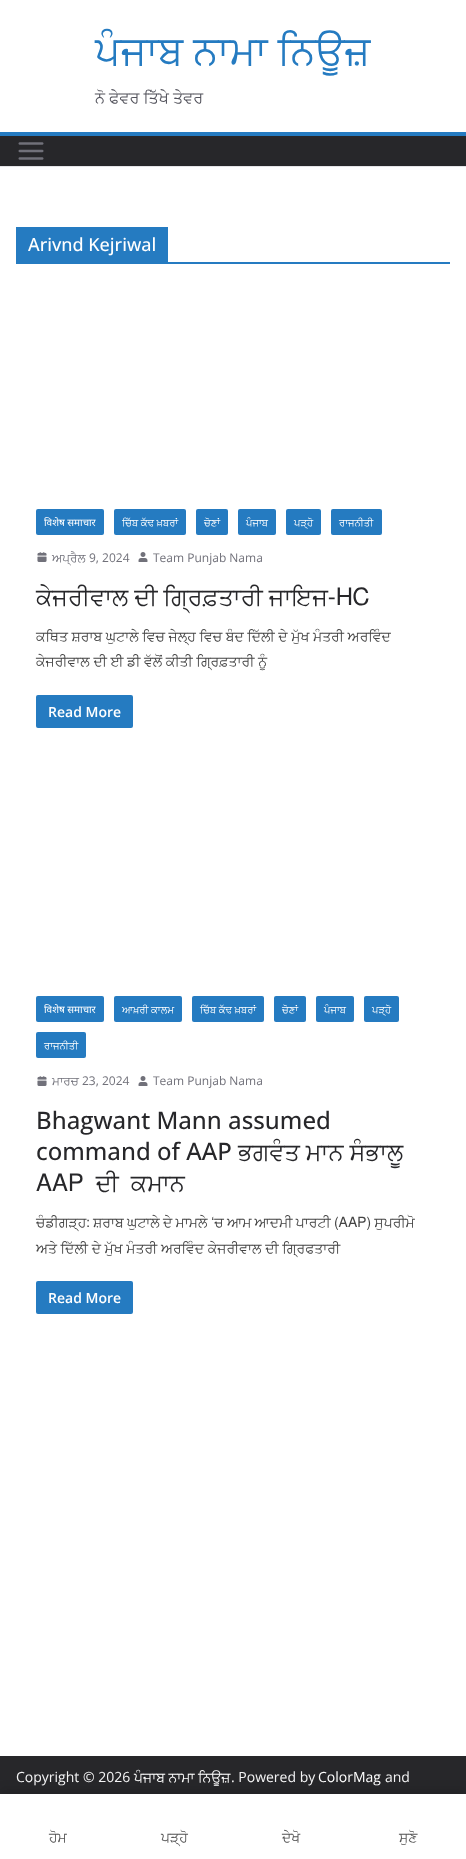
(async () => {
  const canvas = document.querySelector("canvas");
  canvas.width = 466;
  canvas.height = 1859;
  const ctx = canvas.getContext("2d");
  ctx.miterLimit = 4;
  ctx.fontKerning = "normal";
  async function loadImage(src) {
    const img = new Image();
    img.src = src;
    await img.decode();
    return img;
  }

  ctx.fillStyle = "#ffffff";
  ctx.fillRect(0, 0, 466, 1859);
  for (const [x, y, w, h, color] of [
    [0, 166, 466, 1, "#e4e4e7"],
    [0, 136, 466, 30, "#27272a"],
    [0, 132, 466, 4, "#257bc1"],
  ]) {
    ctx.fillStyle = color;
    ctx.fillRect(x, y, w, h);
  }
  ctx.drawImage(await loadImage("img/1.png"), 18, 142, 26, 18);
  ctx.fillRect(16, 262, 434, 2);
  ctx.fillRect(16, 227, 152, 35);
  ctx.beginPath();
  ctx.roundRect(36, 509, 68, 26, 2);
  ctx.fill();
  ctx.beginPath();
  ctx.roundRect(114, 509, 72, 26, 2);
  ctx.fill();
  ctx.beginPath();
  ctx.roundRect(196, 509, 32, 26, 2);
  ctx.fill();
  ctx.beginPath();
  ctx.roundRect(238, 509, 38, 26, 2);
  ctx.fill();
  ctx.beginPath();
  ctx.roundRect(286, 509, 35, 26, 2);
  ctx.fill();
  ctx.beginPath();
  ctx.roundRect(331, 509, 51, 26, 2);
  ctx.fill();
  ctx.drawImage(await loadImage("img/2.png"), 37, 552, 10, 10);
  ctx.drawImage(await loadImage("img/3.png"), 138, 552, 10, 10);
  ctx.beginPath();
  ctx.roundRect(36, 695, 97, 33, 2);
  ctx.fill();
  ctx.beginPath();
  ctx.roundRect(36, 996, 68, 26, 2);
  ctx.fill();
  ctx.beginPath();
  ctx.roundRect(114, 996, 68, 26, 2);
  ctx.fill();
  ctx.beginPath();
  ctx.roundRect(192, 996, 72, 26, 2);
  ctx.fill();
  ctx.beginPath();
  ctx.roundRect(274, 996, 32, 26, 2);
  ctx.fill();
  ctx.beginPath();
  ctx.roundRect(316, 996, 38, 26, 2);
  ctx.fill();
  ctx.beginPath();
  ctx.roundRect(364, 996, 35, 26, 2);
  ctx.fill();
  ctx.beginPath();
  ctx.roundRect(36, 1032, 50, 26, 2);
  ctx.fill();
  ctx.drawImage(await loadImage("img/2.png"), 37, 1076, 10, 10);
  ctx.drawImage(await loadImage("img/3.png"), 138, 1076, 10, 10);
  ctx.beginPath();
  ctx.roundRect(36, 1281, 97, 33, 2);
  ctx.fill();
  ctx.fillStyle = "#27272a";
  ctx.fillRect(0, 1756, 466, 38);
  ctx.fillStyle = "rgba(0, 0, 0, 0.1)";
  ctx.filter = "blur(5px)";
  ctx.beginPath();
  ctx.rect(0, 1789, 466, 65);
  ctx.fill();
  ctx.filter = "none";
  ctx.fillStyle = "#ffffff";
  ctx.fillRect(0, 1794, 466, 65);
  ctx.font = "40px FreeSans";
  ctx.fillStyle = "#257bc1";
  ctx.fillText("ਪੰਜਾਬ ਨਾਮਾ ਨਿਊਜ਼", 95, 64);
  ctx.font = "16px FreeSans";
  ctx.fillStyle = "#52525b";
  ctx.fillText("ਨੋ ਫੇਵਰ ਤਿੱਖੇ ਤੇਵਰ", 95, 103);
  ctx.font = "500 18px Open Sans";
  ctx.fillStyle = "#ffffff";
  ctx.fillText("Arivnd Kejriwal", 28, 251);
  ctx.font = "10px Noto Sans";
  ctx.fillText("विशेष समाचार", 44, 526);
  ctx.font = "10px FreeSans";
  for (const [text, x, y] of [
    ["ਚਿੱਬ ਕੱਢ ਖ਼ਬਰਾਂ", 122, 526],
    ["ਚੋਣਾਂ", 204, 526],
    ["ਪੰਜਾਬ", 246, 526],
    ["ਪੜ੍ਹੋ", 294, 526],
    ["ਰਾਜਨੀਤੀ", 339, 526],
  ]) {
    ctx.fillText(text, x, y);
  }
  ctx.font = "12px FreeSans";
  ctx.fillStyle = "#71717a";
  ctx.fillText("ਅਪ੍ਰੈਲ", 52, 562);
  ctx.font = "12px Open Sans";
  ctx.fillText("9, 2024", 89, 562);
  ctx.fillText("Team Punjab Nama", 153, 562);
  ctx.font = "24px FreeSans";
  ctx.fillStyle = "#27272a";
  ctx.fillText("ਕੇਜਰੀਵਾਲ ਦੀ ਗ੍ਰਿਫ਼ਤਾਰੀ ਜਾਇਜ-HC", 36, 605);
  ctx.wordSpacing = "0.1px";
  ctx.font = "14px FreeSans";
  ctx.fillStyle = "#444444";
  ctx.fillText("ਕਥਿਤ ਸ਼ਰਾਬ ਘੁਟਾਲੇ ਵਿਚ ਜੇਲ੍ਹ ਵਿਚ ਬੰਦ ਦਿੱਲੀ ਦੇ ਮੁੱਖ ਮੰਤਰੀ ਅਰਵਿੰਦ", 36, 641);
  ctx.fillText("ਕੇਜਰੀਵਾਲ ਦੀ ਈ ਡੀ ਵੱਲੋਂ ਕੀਤੀ ਗ੍ਰਿਫ਼ਤਾਰੀ ਨੂੰ", 36, 666);
  ctx.wordSpacing = "0px";
  ctx.font = "600 14px Open Sans";
  ctx.fillStyle = "#ffffff";
  ctx.fillText("Read More", 48, 717);
  ctx.font = "10px Noto Sans";
  ctx.fillText("विशेष समाचार", 44, 1013);
  ctx.font = "10px FreeSans";
  for (const [text, x, y] of [
    ["ਆਖ਼ਰੀ ਕਾਲਮ", 122, 1013],
    ["ਚਿੱਬ ਕੱਢ ਖ਼ਬਰਾਂ", 200, 1013],
    ["ਚੋਣਾਂ", 282, 1013],
    ["ਪੰਜਾਬ", 324, 1013],
    ["ਪੜ੍ਹੋ", 372, 1013],
    ["ਰਾਜਨੀਤੀ", 44, 1049],
  ]) {
    ctx.fillText(text, x, y);
  }
  ctx.font = "12px FreeSans";
  ctx.fillStyle = "#71717a";
  ctx.fillText("ਮਾਰਚ", 52, 1085);
  ctx.font = "12px Open Sans";
  ctx.fillText("23, 2024", 82, 1085);
  ctx.fillText("Team Punjab Nama", 153, 1085);
  ctx.font = "500 24px Open Sans";
  ctx.fillStyle = "#27272a";
  ctx.fillText("Bhagwant Mann assumed", 36, 1129);
  ctx.fillText("command of AAP", 36, 1160);
  ctx.font = "24px FreeSans";
  ctx.fillText("ਭਗਵੰਤ ਮਾਨ ਸੰਭਾਲੂ", 238, 1160);
  ctx.wordSpacing = "6px";
  ctx.fillText("AAP ਦੀ ਕਮਾਨ", 36, 1191);
  ctx.wordSpacing = "-0.25px";
  ctx.font = "14px FreeSans";
  ctx.fillStyle = "#444444";
  ctx.fillText("ਚੰਡੀਗੜ੍ਹ: ਸ਼ਰਾਬ ਘੁਟਾਲੇ ਦੇ ਮਾਮਲੇ ‘ਚ ਆਮ ਆਦਮੀ ਪਾਰਟੀ (AAP) ਸੁਪਰੀਮੋ", 36, 1227);
  ctx.wordSpacing = "0.1px";
  ctx.fillText("ਅਤੇ ਦਿੱਲੀ ਦੇ ਮੁੱਖ ਮੰਤਰੀ ਅਰਵਿੰਦ ਕੇਜਰੀਵਾਲ ਦੀ ਗ੍ਰਿਫਤਾਰੀ", 36, 1253);
  ctx.wordSpacing = "0px";
  ctx.font = "600 14px Open Sans";
  ctx.fillStyle = "#ffffff";
  ctx.fillText("Read More", 48, 1303);
  ctx.font = "14px Open Sans";
  ctx.fillStyle = "#f4f4f5";
  ctx.fillText("Copyright © 2026", 16, 1782);
  ctx.font = "14px FreeSans";
  ctx.fillStyle = "#ffffff";
  ctx.fillText("ਪੰਜਾਬ ਨਾਮਾ ਨਿਊਜ਼", 134, 1782);
  ctx.font = "14px Open Sans";
  ctx.fillStyle = "#f4f4f5";
  ctx.fillText(". Powered by", 231, 1782);
  ctx.fillStyle = "#ffffff";
  ctx.fillText("ColorMag", 318, 1782);
  ctx.fillStyle = "#f4f4f5";
  ctx.fillText("and", 385, 1782);
  ctx.font = "14px FreeSans";
  ctx.fillStyle = "#555555";
  for (const [text, x, y] of [
    ["ਹੋਮ", 49, 1842],
    ["ਪੜ੍ਹੋ", 161, 1842],
    ["ਦੇਖੋ", 282, 1842],
    ["ਸੁਣੋ", 399, 1842],
  ]) {
    ctx.fillText(text, x, y);
  }
})();
